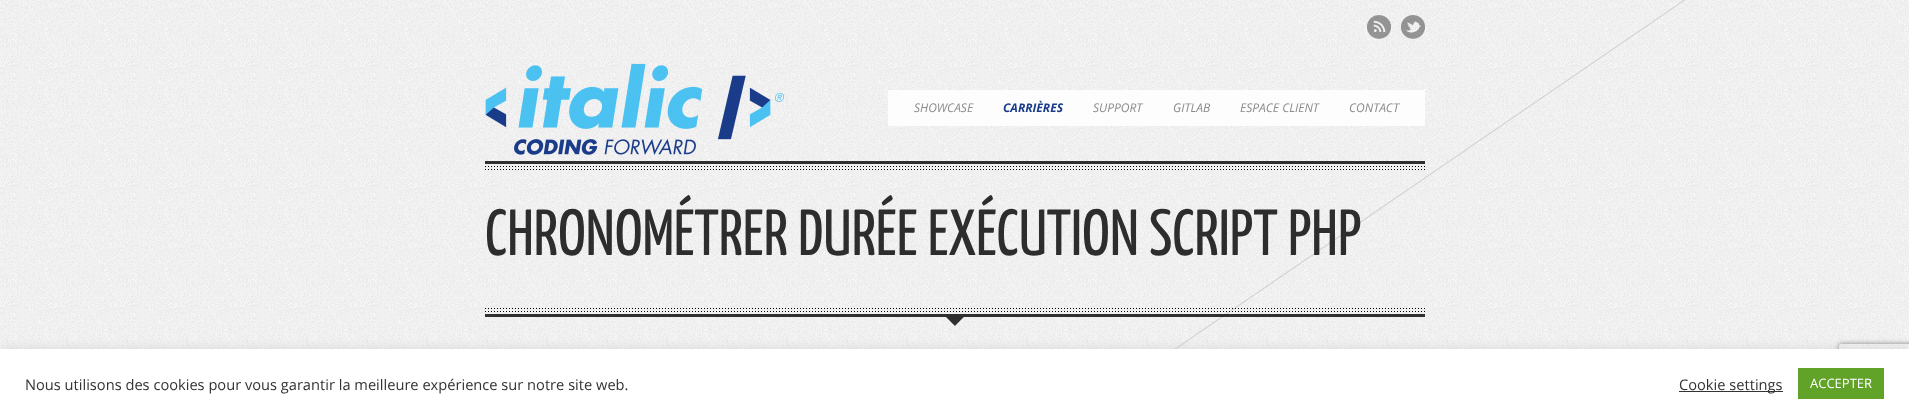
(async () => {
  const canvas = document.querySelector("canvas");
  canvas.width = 1909;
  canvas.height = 418;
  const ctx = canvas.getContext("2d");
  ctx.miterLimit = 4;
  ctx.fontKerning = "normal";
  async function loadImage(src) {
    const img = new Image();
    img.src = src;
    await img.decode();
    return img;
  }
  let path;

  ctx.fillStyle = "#ffffff";
  ctx.fillRect(0, 0, 1909, 418);
  ctx.drawImage(await loadImage("img/1.png"), 0, 0, 1909, 349);
  ctx.drawImage(await loadImage("img/2.png"), 1174, 0, 511, 349);
  ctx.drawImage(await loadImage("img/3.png"), 1367, 15, 24, 24);
  ctx.drawImage(await loadImage("img/4.png"), 1401, 15, 24, 24);
  ctx.drawImage(await loadImage("img/5.png"), 485, 63, 299, 92);
  ctx.fillStyle = "#fdfdfd";
  ctx.fillRect(888, 90, 537, 36);
  ctx.drawImage(await loadImage("img/6.png"), 485, 161, 940, 9);
  ctx.drawImage(await loadImage("img/7.png"), 485, 308, 940, 9);
  ctx.drawImage(await loadImage("img/8.png"), 946, 317, 18, 9);
  ctx.save();
  path = new Path2D("M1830 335H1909V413H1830ZM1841 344H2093C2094 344 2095 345 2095 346V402C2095 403 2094 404 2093 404H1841C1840 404 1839 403 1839 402V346C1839 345 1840 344 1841 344Z");
  ctx.clip(path, "evenodd");
  ctx.fillStyle = "#808080";
  ctx.filter = "blur(2.5px)";
  ctx.beginPath();
  ctx.roundRect(1839, 344, 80, 60, 2);
  ctx.fill();
  ctx.filter = "none";
  ctx.restore();
  ctx.fillStyle = "rgba(172, 171, 171, 0.3)";
  ctx.filter = "blur(5px)";
  ctx.beginPath();
  ctx.rect(0, 348, 1909, 69);
  ctx.fill();
  ctx.filter = "none";
  for (const [x, y, w, h, color] of [
    [0, 349, 1909, 69, "#ffffff"],
    [1679, 391, 104, 1, "#333333"],
    [1798, 368, 86, 31, "#61a229"],
  ]) {
    ctx.fillStyle = color;
    ctx.fillRect(x, y, w, h);
  }
  ctx.font = "italic 12px Open Sans";
  ctx.fillStyle = "#8b8b8b";
  ctx.fillText("SHOWCASE", 914, 112);
  ctx.font = "italic bold 12px Open Sans";
  ctx.fillStyle = "#1a3c8a";
  ctx.fillText("CARRIÈRES", 1003, 112);
  ctx.font = "italic 12px Open Sans";
  ctx.fillStyle = "#8b8b8b";
  for (const [text, x, y] of [
    ["SUPPORT", 1093, 112],
    ["GITLAB", 1173, 112],
    ["ESPACE CLIENT", 1240, 112],
    ["CONTACT", 1349, 112],
  ]) {
    ctx.fillText(text, x, y);
  }
  ctx.font = "65px Yanone Kaffeesatz";
  ctx.fillStyle = "#2d2d2d";
  ctx.fillText("CHRONOMÉTRER DURÉE EXÉCUTION SCRIPT PHP", 485, 255);
  ctx.font = "14.65px Open Sans";
  ctx.fillStyle = "#333333";
  ctx.fillText("Nous utilisons des cookies pour vous garantir la meilleure expérience sur notre site web.", 25, 390);
  ctx.fillText("Cookie settings", 1679, 390);
  ctx.font = "13px Open Sans";
  ctx.fillStyle = "#ffffff";
  ctx.fillText("ACCEPTER", 1810, 388);
})();
